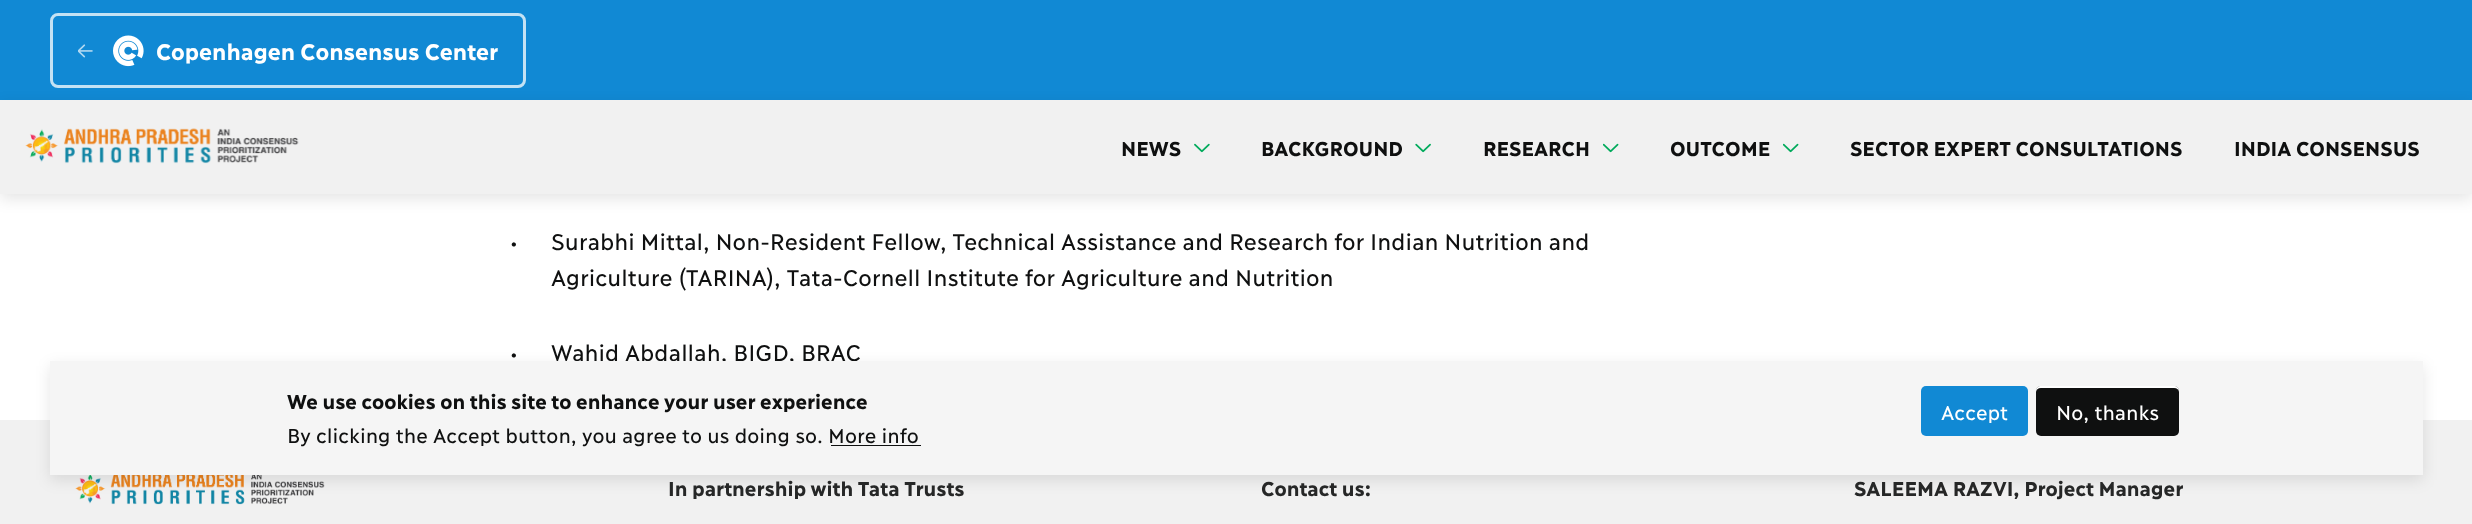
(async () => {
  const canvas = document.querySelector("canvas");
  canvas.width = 2472;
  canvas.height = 524;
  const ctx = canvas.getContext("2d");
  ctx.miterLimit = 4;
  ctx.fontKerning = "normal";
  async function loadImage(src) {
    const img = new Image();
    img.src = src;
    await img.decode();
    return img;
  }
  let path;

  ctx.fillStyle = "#ffffff";
  ctx.fillRect(0, 0, 2472, 524);
  ctx.fillStyle = "#1189d4";
  ctx.fillRect(0, 0, 2472, 100);
  ctx.beginPath();
  ctx.roundRect(51.5, 14.5, 473, 72, 6.5);
  ctx.strokeStyle = "#c4e2f4";
  ctx.lineWidth = 3;
  ctx.stroke();
  ctx.drawImage(await loadImage("img/1.png"), 78, 44, 15, 14);
  ctx.drawImage(await loadImage("img/2.png"), 113, 35, 31, 32);
  ctx.fillStyle = "rgba(0, 0, 0, 0.1)";
  ctx.filter = "blur(7.5px)";
  ctx.beginPath();
  ctx.rect(0, 105, 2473, 94);
  ctx.fill();
  ctx.filter = "none";
  ctx.fillStyle = "#f1f1f1";
  ctx.fillRect(0, 100, 2472, 94);
  ctx.drawImage(await loadImage("img/3.png"), 25, 128, 274, 36);
  ctx.drawImage(await loadImage("img/4.png"), 1194, 143, 16, 10);
  ctx.drawImage(await loadImage("img/5.png"), 1415, 143, 16, 10);
  ctx.drawImage(await loadImage("img/6.png"), 1603, 143, 16, 10);
  ctx.drawImage(await loadImage("img/6.png"), 1783, 143, 16, 10);
  ctx.fillRect(0, 420, 2472, 104);
  ctx.drawImage(await loadImage("img/7.png"), 75, 475, 250, 30);
  ctx.fillStyle = "rgba(0, 0, 0, 0.1)";
  ctx.filter = "blur(7.5px)";
  ctx.beginPath();
  ctx.rect(50, 366, 2373, 114);
  ctx.fill();
  ctx.filter = "none";
  ctx.font = "bold 22.5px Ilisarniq";
  ctx.fillStyle = "#ffffff";
  ctx.fillText("Copenhagen Consensus Center", 156, 60);
  ctx.font = "bold 20px Ilisarniq";
  ctx.fillStyle = "#0f1010";
  for (const [text, x, y] of [
    ["NEWS", 1121, 156],
    ["BACKGROUND", 1261, 156],
    ["RESEARCH", 1483, 156],
    ["OUTCOME", 1670, 156],
    ["SECTOR EXPERT CONSULTATIONS", 1850, 156],
    ["INDIA CONSENSUS", 2234, 156],
  ]) {
    ctx.fillText(text, x, y);
  }
  ctx.font = "22.5px Ilisarniq";
  ctx.fillText("•", 510, 251);
  ctx.wordSpacing = "-0.1px";
  ctx.fillText("Surabhi Mittal, Non-Resident Fellow, Technical Assistance and Research for Indian Nutrition and", 551, 250);
  ctx.wordSpacing = "0px";
  for (const [text, x, y] of [
    ["Agriculture (TARINA), Tata-Cornell Institute for Agriculture and Nutrition", 551, 286],
    ["•", 510, 362],
    ["Wahid Abdallah, BIGD, BRAC", 551, 361],
  ]) {
    ctx.fillText(text, x, y);
  }
  ctx.fillStyle = "#f5f5f5";
  ctx.fillRect(50, 361, 2373, 114);
  ctx.font = "bold 20px Ilisarniq";
  ctx.fillStyle = "#0f1010";
  ctx.fillText("We use cookies on this site to enhance your user experience", 287, 409);
  ctx.font = "20px Ilisarniq";
  ctx.fillText("By clicking the Accept button, you agree to us doing so. More info", 287, 443);
  ctx.fillRect(831, 445, 90, 1);
  ctx.fillStyle = "#1189d4";
  ctx.beginPath();
  ctx.roundRect(1921, 386, 107, 50, 5);
  ctx.fill();
  ctx.fillStyle = "#ffffff";
  ctx.fillText("Accept", 1941, 420);
  ctx.fillStyle = "#0f1010";
  ctx.beginPath();
  ctx.roundRect(2036, 386, 143, 50, 5);
  ctx.fill();
  ctx.fillStyle = "#ffffff";
  path = new Path2D("M2041 388H2174C2177 388 2179 390 2179 392V391C2179 388 2177 386 2174 386H2041C2038 386 2036 388 2036 391V392C2036 390 2038 388 2041 388Z");
  ctx.fill(path);
  ctx.fillText("No, thanks", 2056, 420);
  ctx.font = "bold 20px Ilisarniq";
  ctx.fillStyle = "#262727";
  for (const [text, x, y] of [
    ["In partnership with Tata Trusts", 668, 496],
    ["Contact us:", 1261, 496],
    ["SALEEMA RAZVI, Project Manager", 1854, 496],
  ]) {
    ctx.fillText(text, x, y);
  }
})();
